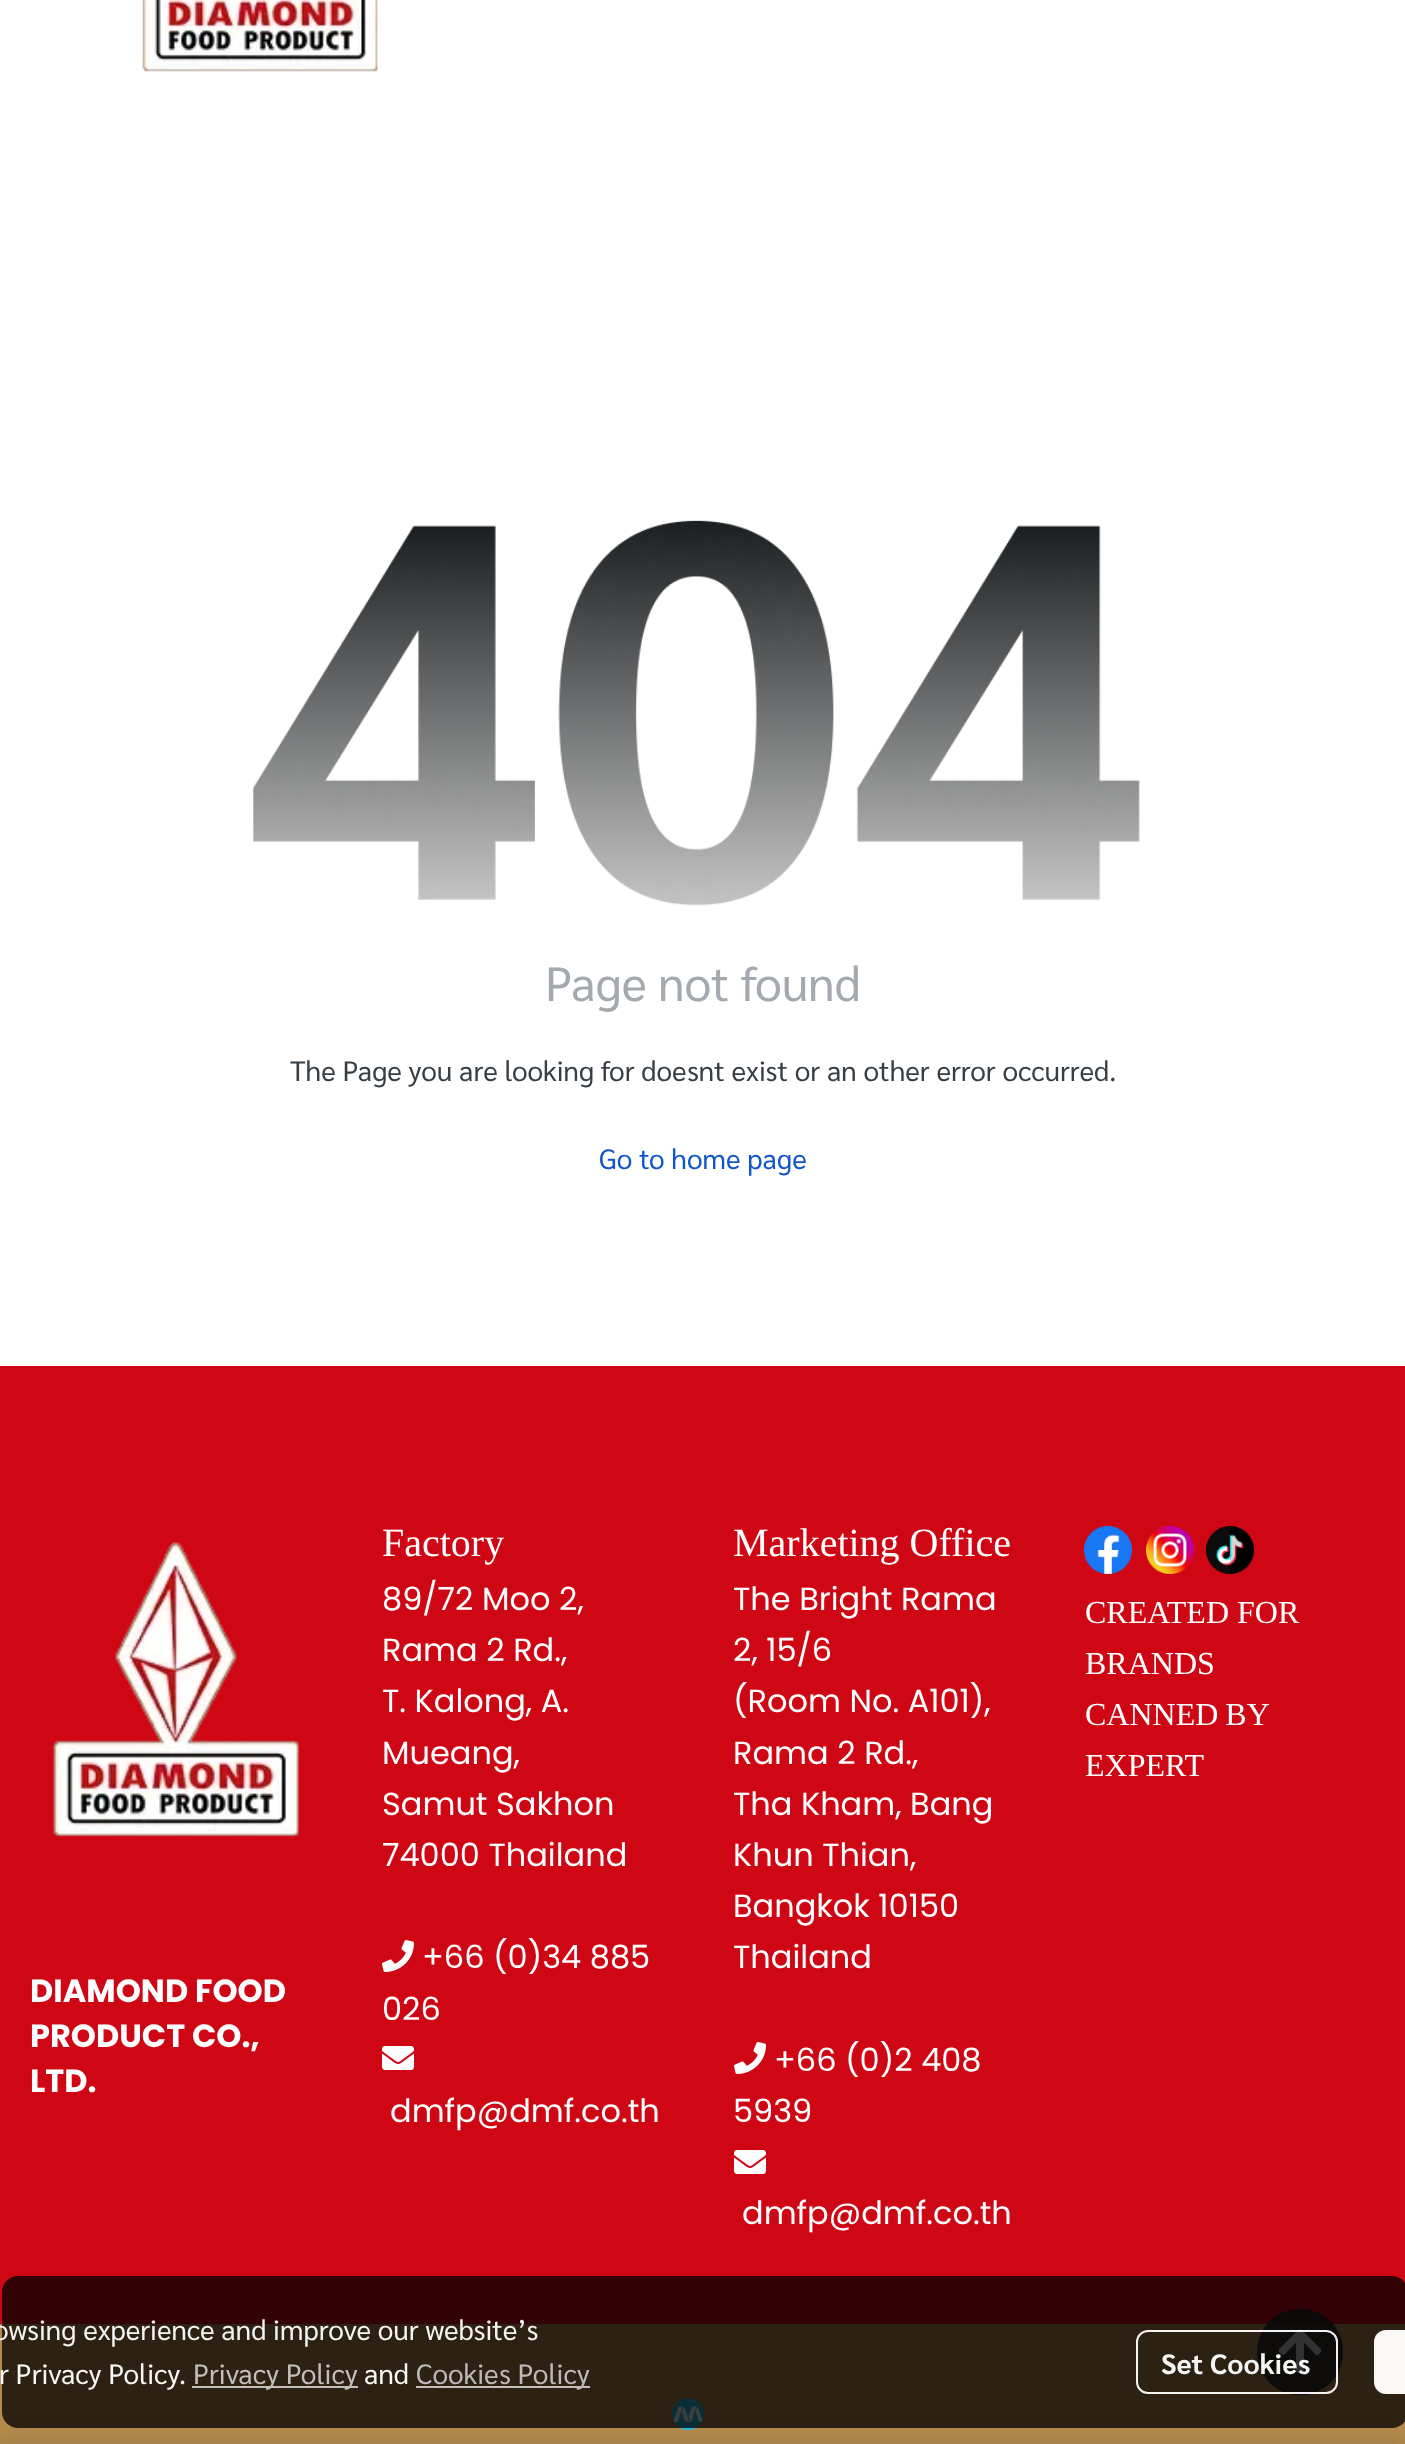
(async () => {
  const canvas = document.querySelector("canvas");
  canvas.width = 1405;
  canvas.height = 2444;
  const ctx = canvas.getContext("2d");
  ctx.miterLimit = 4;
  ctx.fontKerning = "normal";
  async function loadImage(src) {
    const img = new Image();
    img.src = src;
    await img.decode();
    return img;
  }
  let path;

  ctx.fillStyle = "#ffffff";
  ctx.fillRect(0, 0, 1405, 2444);
  ctx.drawImage(await loadImage("img/1.png"), 142, 0, 236, 72);
  ctx.drawImage(await loadImage("img/2.png"), 253, 520, 887, 386);
  ctx.fillStyle = "#cf0715";
  ctx.fillRect(0, 1366, 1405, 958);
  ctx.fillStyle = "#b68a4b";
  ctx.fillRect(0, 2324, 1405, 120);
  ctx.fillStyle = "rgba(43, 42, 42, 0.7)";
  path = new Path2D("M1300 2309C1276 2309 1257 2328 1257 2352C1257 2376 1276 2395 1300 2395C1324 2395 1343 2376 1343 2352C1343 2328 1324 2309 1300 2309Z");
  ctx.fill(path);
  ctx.drawImage(await loadImage("img/3.png"), 1278, 2329, 44, 45);
  ctx.drawImage(await loadImage("img/4.png"), 382, 1940, 32, 32);
  ctx.drawImage(await loadImage("img/5.png"), 382, 2046, 32, 24);
  ctx.drawImage(await loadImage("img/4.png"), 734, 2042, 32, 32);
  ctx.drawImage(await loadImage("img/5.png"), 734, 2150, 32, 24);
  ctx.drawImage(await loadImage("img/6.png"), 1084, 1526, 48, 48);
  ctx.drawImage(await loadImage("img/7.png"), 1146, 1526, 48, 48);
  ctx.drawImage(await loadImage("img/8.png"), 1206, 1526, 48, 48);
  ctx.drawImage(await loadImage("img/9.png"), 53, 1542, 246, 295);
  path = new Path2D("M1300 2309C1276 2309 1257 2328 1257 2352C1257 2376 1276 2395 1300 2395C1324 2395 1343 2376 1343 2352C1343 2328 1324 2309 1300 2309Z");
  ctx.fill(path);
  ctx.drawImage(await loadImage("img/10.png"), 1278, 2329, 44, 45);
  ctx.drawImage(await loadImage("img/11.png"), 672, 2398, 32, 32);
  ctx.fillStyle = "rgba(0, 53, 74, 0.15)";
  ctx.filter = "blur(10px)";
  ctx.beginPath();
  ctx.rect(0, 2440, 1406, 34);
  ctx.fill();
  ctx.filter = "none";
  ctx.fillStyle = "rgba(0, 0, 0, 0.76)";
  ctx.beginPath();
  ctx.roundRect(2, 2276, 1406, 152, 16);
  ctx.fill();
  ctx.fillStyle = "#c1bfbc";
  ctx.fillRect(192, 2386, 166, 2);
  ctx.fillRect(416, 2386, 174, 2);
  ctx.beginPath();
  ctx.roundRect(1137, 2331, 200, 62, 11);
  ctx.strokeStyle = "rgba(255, 255, 255, 0.95)";
  ctx.lineWidth = 2;
  ctx.stroke();
  ctx.fillStyle = "#fbf9f6";
  ctx.beginPath();
  ctx.roundRect(1374, 2330, 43, 64, 12);
  ctx.fill();
  ctx.font = "48px Sarabun";
  ctx.fillStyle = "#a4a9af";
  ctx.fillText("Page not found", 545, 1001);
  ctx.font = "28px Sarabun";
  ctx.fillStyle = "#373e44";
  ctx.fillText("The Page you are looking for doesnt exist or an other error occurred.", 290, 1081);
  ctx.fillStyle = "#1155cc";
  ctx.fillText("Go to home page", 599, 1169);
  ctx.font = "40px Liberation Serif";
  ctx.fillStyle = "#ffffff";
  ctx.fillText("Factory", 382, 1556);
  ctx.font = "32px Poppins";
  for (const [text, x, y] of [
    ["89/72 Moo 2,", 382, 1610],
    ["Rama 2 Rd.,", 382, 1661],
    ["T. Kalong, A.", 382, 1712],
    ["Mueang,", 382, 1764],
    ["Samut Sakhon", 382, 1815],
    ["74000 Thailand", 382, 1866],
    ["+66 (0)34 885", 422, 1968],
    ["026", 382, 2020],
    ["dmfp@dmf.co.th", 390, 2122],
  ]) {
    ctx.fillText(text, x, y);
  }
  ctx.font = "40px Liberation Serif";
  ctx.fillText("Marketing Office", 733, 1556);
  ctx.font = "32px Poppins";
  for (const [text, x, y] of [
    ["The Bright Rama", 733, 1610],
    ["2, 15/6", 733, 1661],
    ["(Room No. A101),", 733, 1712],
    ["Rama 2 Rd.,", 733, 1764],
    ["Tha Kham, Bang", 733, 1815],
    ["Khun Thian,", 733, 1866],
    ["Bangkok 10150", 733, 1917],
    ["Thailand", 733, 1968],
    ["+66 (0)2 408", 774, 2071],
    ["5939", 733, 2122],
    ["dmfp@dmf.co.th", 742, 2224],
  ]) {
    ctx.fillText(text, x, y);
  }
  ctx.font = "32px Liberation Serif";
  ctx.fillText("CREATED FOR", 1085, 1623);
  ctx.fillText("BRANDS", 1085, 1674);
  ctx.wordSpacing = "-1px";
  ctx.fillText("CANNED BY", 1085, 1725);
  ctx.wordSpacing = "0px";
  ctx.fillText("EXPERT", 1085, 1776);
  ctx.font = "bold 32px Poppins";
  for (const [text, x, y] of [
    ["DIAMOND FOOD", 30, 2002],
    ["PRODUCT CO.,", 30, 2047],
    ["LTD.", 30, 2092],
  ]) {
    ctx.fillText(text, x, y);
  }
  ctx.font = "28px Sarabun";
  ctx.fillStyle = "#f4f4f3";
  ctx.fillText("owsing experience and improve our website’s", -7, 2340);
  ctx.fillStyle = "#fbf9f6";
  ctx.fillText("r Privacy Policy.", -1, 2384);
  ctx.fillStyle = "#c1bfbc";
  ctx.fillText("Privacy Policy", 193, 2384);
  ctx.fillStyle = "#fbf9f6";
  ctx.fillText("and", 364, 2384);
  ctx.fillStyle = "#bbbab9";
  ctx.fillText("Cookies Policy", 416, 2384);
  ctx.font = "bold 28px Sarabun";
  ctx.fillStyle = "#f4f4f3";
  ctx.fillText("Set Cookies", 1161, 2374);
})();
